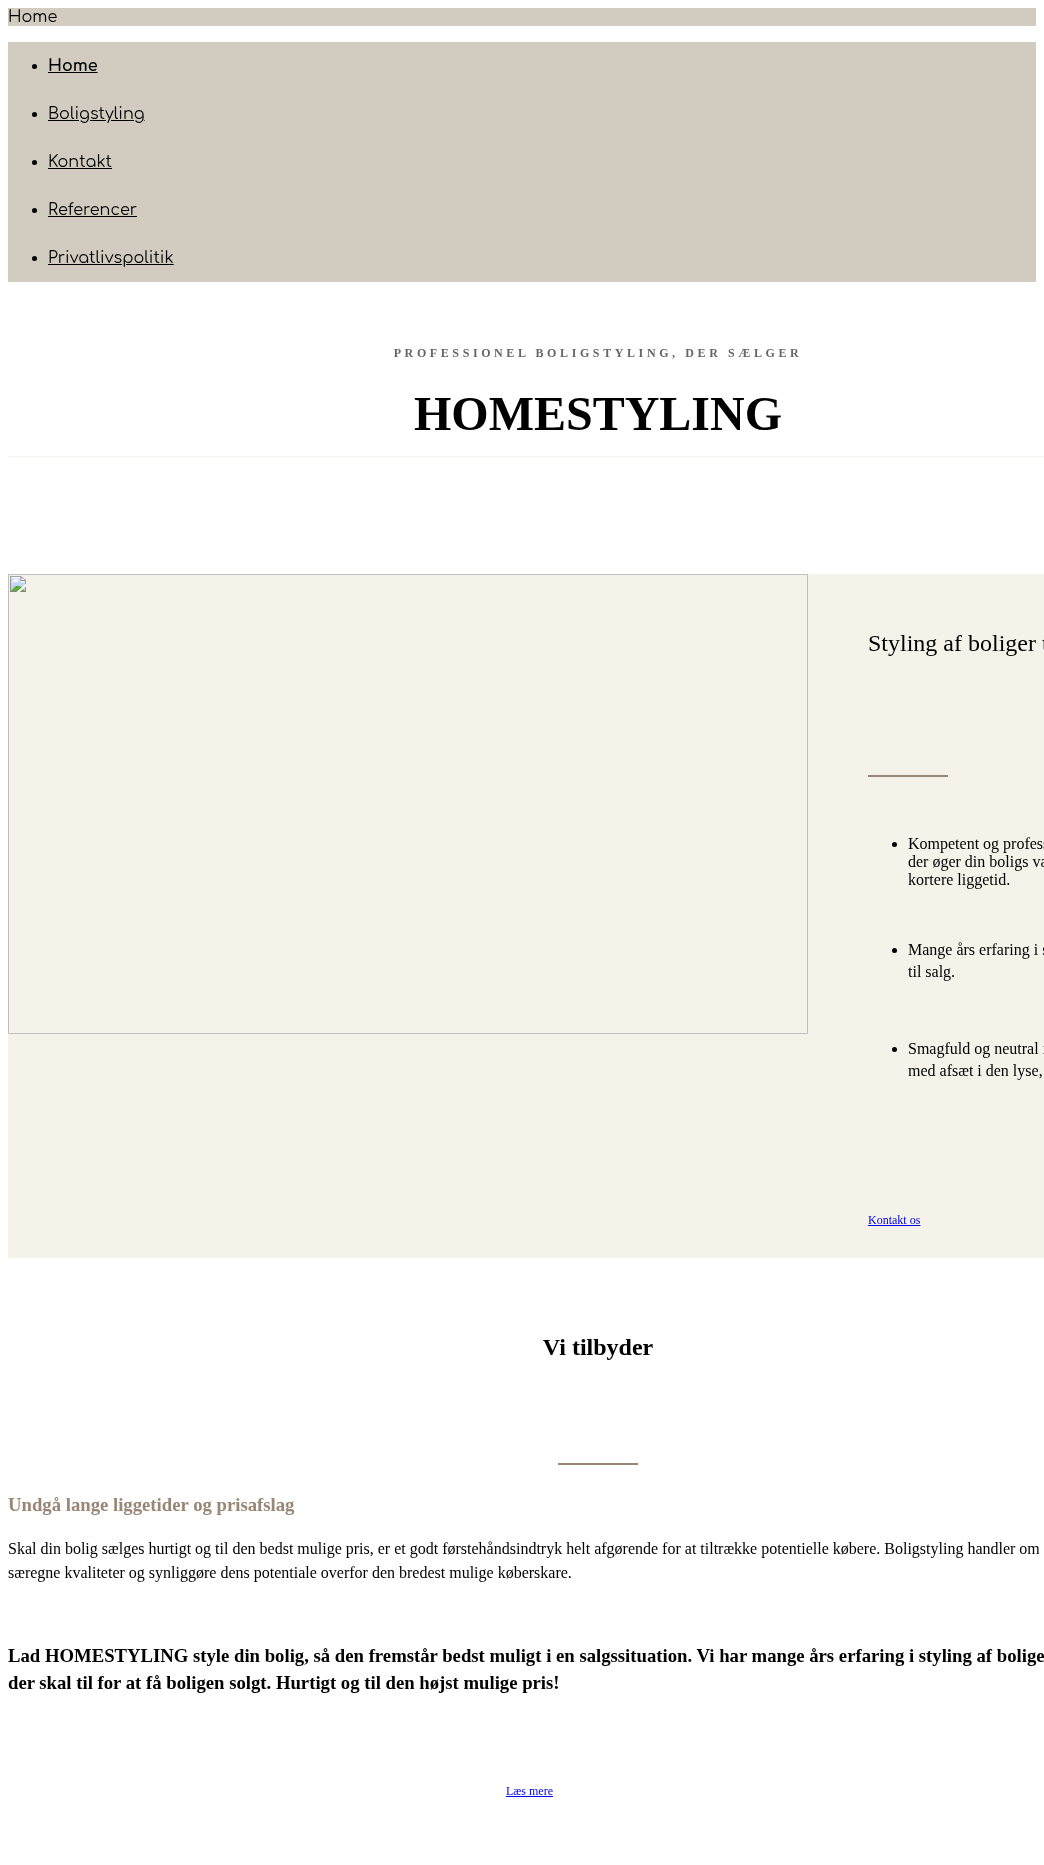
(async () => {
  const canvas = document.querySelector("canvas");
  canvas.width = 1044;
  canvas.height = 1865;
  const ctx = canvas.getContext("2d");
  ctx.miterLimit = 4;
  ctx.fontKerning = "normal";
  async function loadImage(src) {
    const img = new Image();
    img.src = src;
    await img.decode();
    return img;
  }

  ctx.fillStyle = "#ffffff";
  ctx.fillRect(0, 0, 1044, 1865);
  ctx.drawImage(await loadImage("img/1.png"), 8, 8, 1036, 1789);
})();
